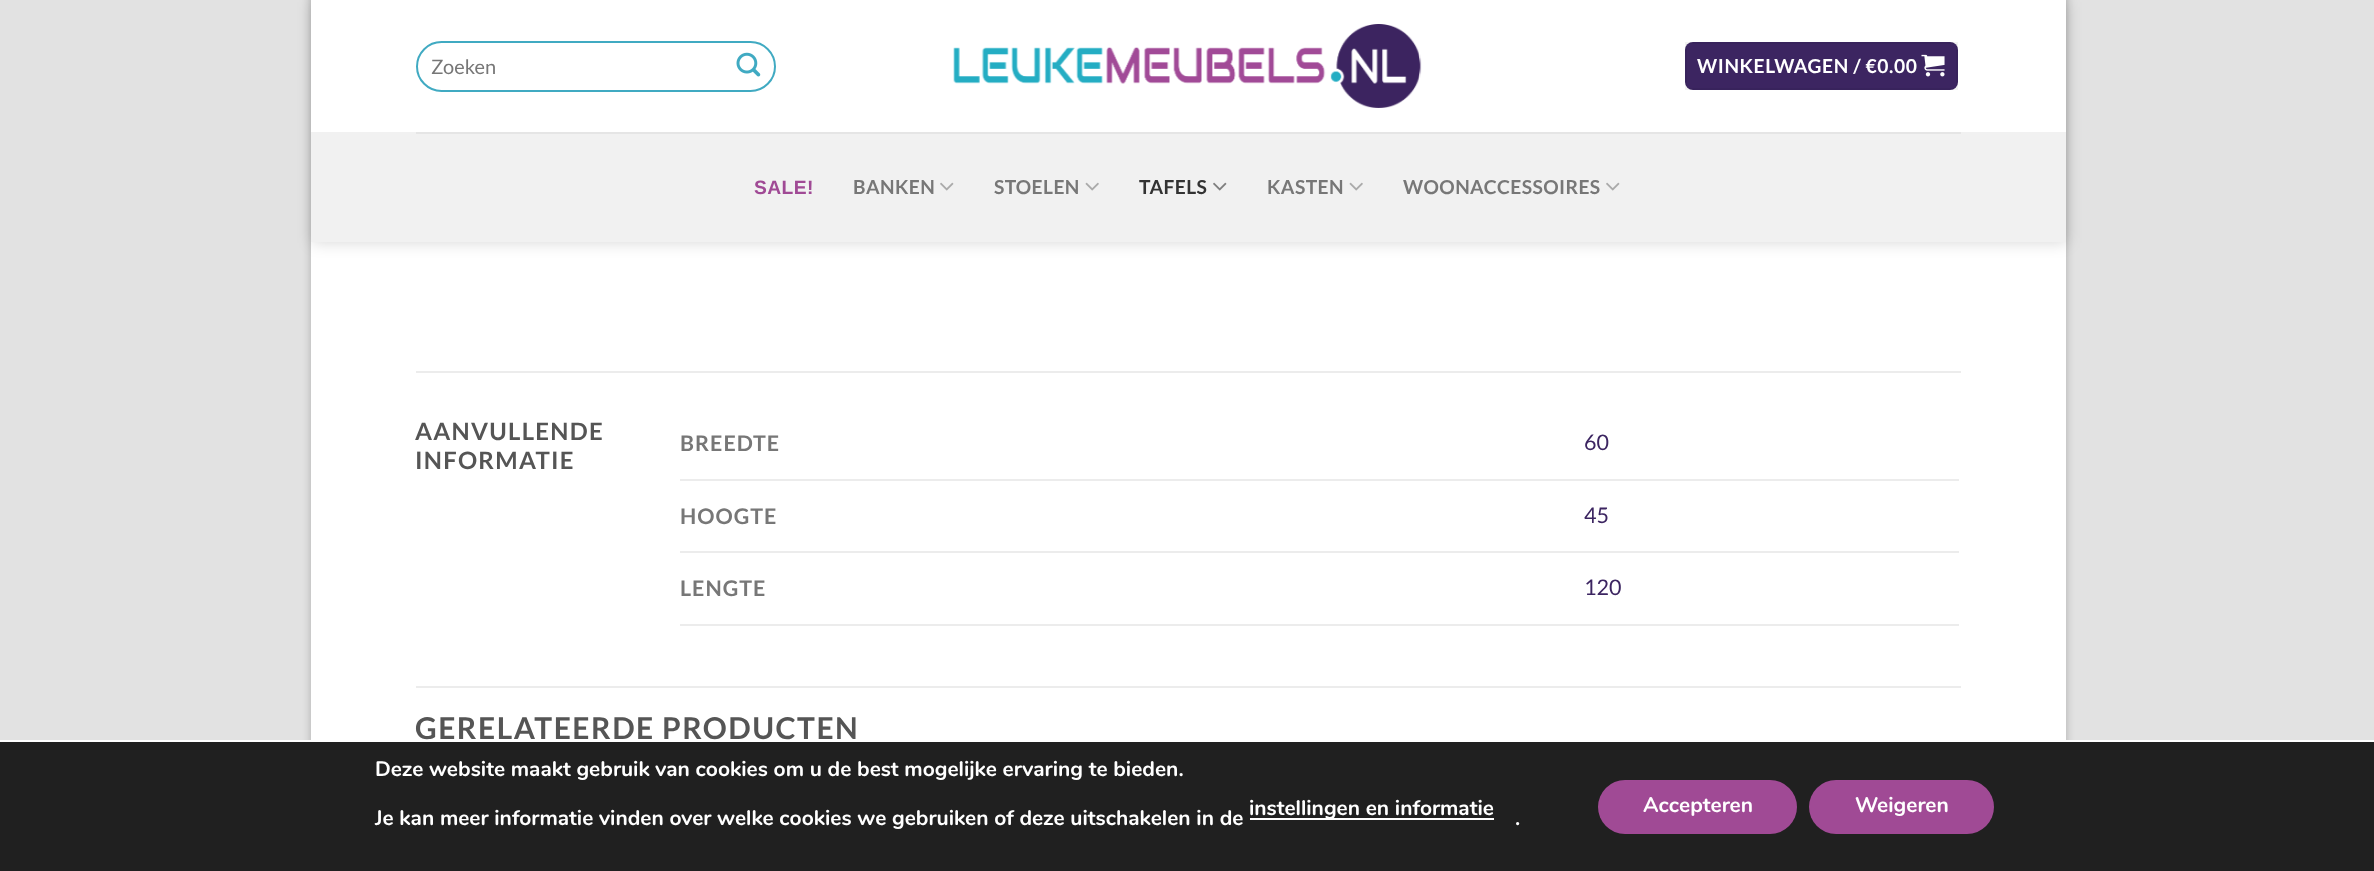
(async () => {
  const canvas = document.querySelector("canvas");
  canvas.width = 2374;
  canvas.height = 871;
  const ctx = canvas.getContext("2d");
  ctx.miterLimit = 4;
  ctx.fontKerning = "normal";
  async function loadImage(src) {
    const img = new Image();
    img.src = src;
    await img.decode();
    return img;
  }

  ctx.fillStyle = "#e2e2e2";
  ctx.fillRect(0, 0, 2374, 871);
  ctx.fillStyle = "rgba(0, 0, 0, 0.23)";
  ctx.filter = "blur(4.5px)";
  ctx.beginPath();
  ctx.rect(311, -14, 1755, 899);
  ctx.fill();
  ctx.filter = "none";
  ctx.fillStyle = "#ffffff";
  ctx.fillRect(311, 242, 1755, 498);
  ctx.fillStyle = "rgba(0, 0, 0, 0.15)";
  ctx.filter = "blur(7.5px)";
  ctx.beginPath();
  ctx.rect(312, 2, 1755, 241);
  ctx.fill();
  ctx.filter = "none";
  ctx.fillStyle = "#ffffff";
  ctx.fillRect(311, 0, 1755, 132);
  ctx.beginPath();
  ctx.roundRect(417, 42, 358, 49, 24.5);
  ctx.strokeStyle = "#40aac2";
  ctx.lineWidth = 2;
  ctx.stroke();
  ctx.drawImage(await loadImage("img/1.png"), 736, 52, 25, 25);
  ctx.drawImage(await loadImage("img/2.png"), 953, 24, 469, 84);
  ctx.fillStyle = "#3c2561";
  ctx.beginPath();
  ctx.roundRect(1685, 42, 273, 48, 8);
  ctx.fill();
  ctx.strokeStyle = "rgba(0, 0, 0, 0.05)";
  ctx.strokeRect(1686, 43, 271, 46);
  ctx.drawImage(await loadImage("img/3.png"), 1921, 54, 24, 23);
  ctx.fillStyle = "#f1f1f1";
  ctx.fillRect(311, 132, 1755, 110);
  ctx.fillStyle = "#e5e5e5";
  ctx.fillRect(416, 132, 1545, 2);
  ctx.drawImage(await loadImage("img/4.png"), 940, 182, 14, 9);
  ctx.drawImage(await loadImage("img/5.png"), 1085, 182, 14, 9);
  ctx.drawImage(await loadImage("img/6.png"), 1213, 182, 14, 9);
  ctx.drawImage(await loadImage("img/5.png"), 1349, 182, 14, 9);
  ctx.drawImage(await loadImage("img/4.png"), 1606, 182, 14, 9);
  for (const [x, y, w, h, color] of [
    [416, 371, 1545, 2, "#ececec"],
    [680, 479, 1279, 2, "#ececec"],
    [680, 551, 1279, 2, "#ececec"],
    [680, 624, 1279, 2, "#ececec"],
    [416, 686, 1545, 2, "#ececec"],
    [0, 742, 2374, 129, "#202020"],
    [0, 740, 2374, 2, "#ffffff"],
    [1250, 818, 244, 2, "#ffffff"],
  ]) {
    ctx.fillStyle = color;
    ctx.fillRect(x, y, w, h);
  }
  ctx.fillStyle = "#a04a95";
  ctx.beginPath();
  ctx.roundRect(1598, 780, 199, 54, 27);
  ctx.fill();
  ctx.beginPath();
  ctx.roundRect(1809, 780, 185, 54, 27);
  ctx.fill();
  ctx.font = "20px Lato";
  ctx.fillStyle = "#777777";
  ctx.fillText("Zoeken", 431, 74);
  ctx.letterSpacing = "0.6px";
  ctx.font = "bold 19.25px Lato";
  ctx.fillStyle = "#ffffff";
  ctx.fillText("WINKELWAGEN / €0.00", 1697, 73);
  ctx.letterSpacing = "0.4px";
  ctx.font = "bold 19.25px Liberation Sans";
  ctx.fillStyle = "#a04a95";
  ctx.fillText("SALE!", 754, 194);
  ctx.font = "bold 19.25px Lato";
  ctx.fillStyle = "#777777";
  ctx.fillText("BANKEN", 853, 194);
  ctx.fillText("STOELEN", 994, 194);
  ctx.fillStyle = "#333333";
  ctx.fillText("TAFELS", 1139, 194);
  ctx.fillStyle = "#777777";
  ctx.fillText("KASTEN", 1267, 194);
  ctx.fillText("WOONACCESSOIRES", 1403, 194);
  ctx.letterSpacing = "1.25px";
  ctx.font = "bold 24px Lato";
  ctx.fillStyle = "#555555";
  ctx.fillText("AANVULLENDE", 415, 440);
  ctx.fillText("INFORMATIE", 415, 469);
  ctx.letterSpacing = "1px";
  ctx.font = "bold 21.5px Lato";
  ctx.fillStyle = "#777777";
  ctx.fillText("BREEDTE", 680, 451);
  ctx.letterSpacing = "0px";
  ctx.font = "21.5px Lato";
  ctx.fillStyle = "#3c2561";
  ctx.fillText("60", 1584, 450);
  ctx.letterSpacing = "1px";
  ctx.font = "bold 21.5px Lato";
  ctx.fillStyle = "#777777";
  ctx.fillText("HOOGTE", 680, 524);
  ctx.letterSpacing = "0px";
  ctx.font = "21.5px Lato";
  ctx.fillStyle = "#3c2561";
  ctx.fillText("45", 1584, 523);
  ctx.letterSpacing = "1px";
  ctx.font = "bold 21.5px Lato";
  ctx.fillStyle = "#777777";
  ctx.fillText("LENGTE", 680, 596);
  ctx.letterSpacing = "0px";
  ctx.font = "21.5px Lato";
  ctx.fillStyle = "#3c2561";
  ctx.fillText("120", 1584, 595);
  ctx.letterSpacing = "1.5px";
  ctx.font = "bold 30px Lato";
  ctx.fillStyle = "#555555";
  ctx.fillText("GERELATEERDE PRODUCTEN", 415, 739);
  ctx.letterSpacing = "0px";
  ctx.font = "bold 21px Nunito";
  ctx.fillStyle = "#ffffff";
  for (const [text, x, y] of [
    ["Deze website maakt gebruik van cookies om u de best mogelijke ervaring te bieden.", 375, 776],
    ["Je kan meer informatie vinden over welke cookies we gebruiken of deze uitschakelen in de", 375, 825],
    ["instellingen en informatie", 1249, 815],
    [".", 1515, 825],
    ["Accepteren", 1643, 812],
    ["Weigeren", 1855, 812],
  ]) {
    ctx.fillText(text, x, y);
  }
})();
